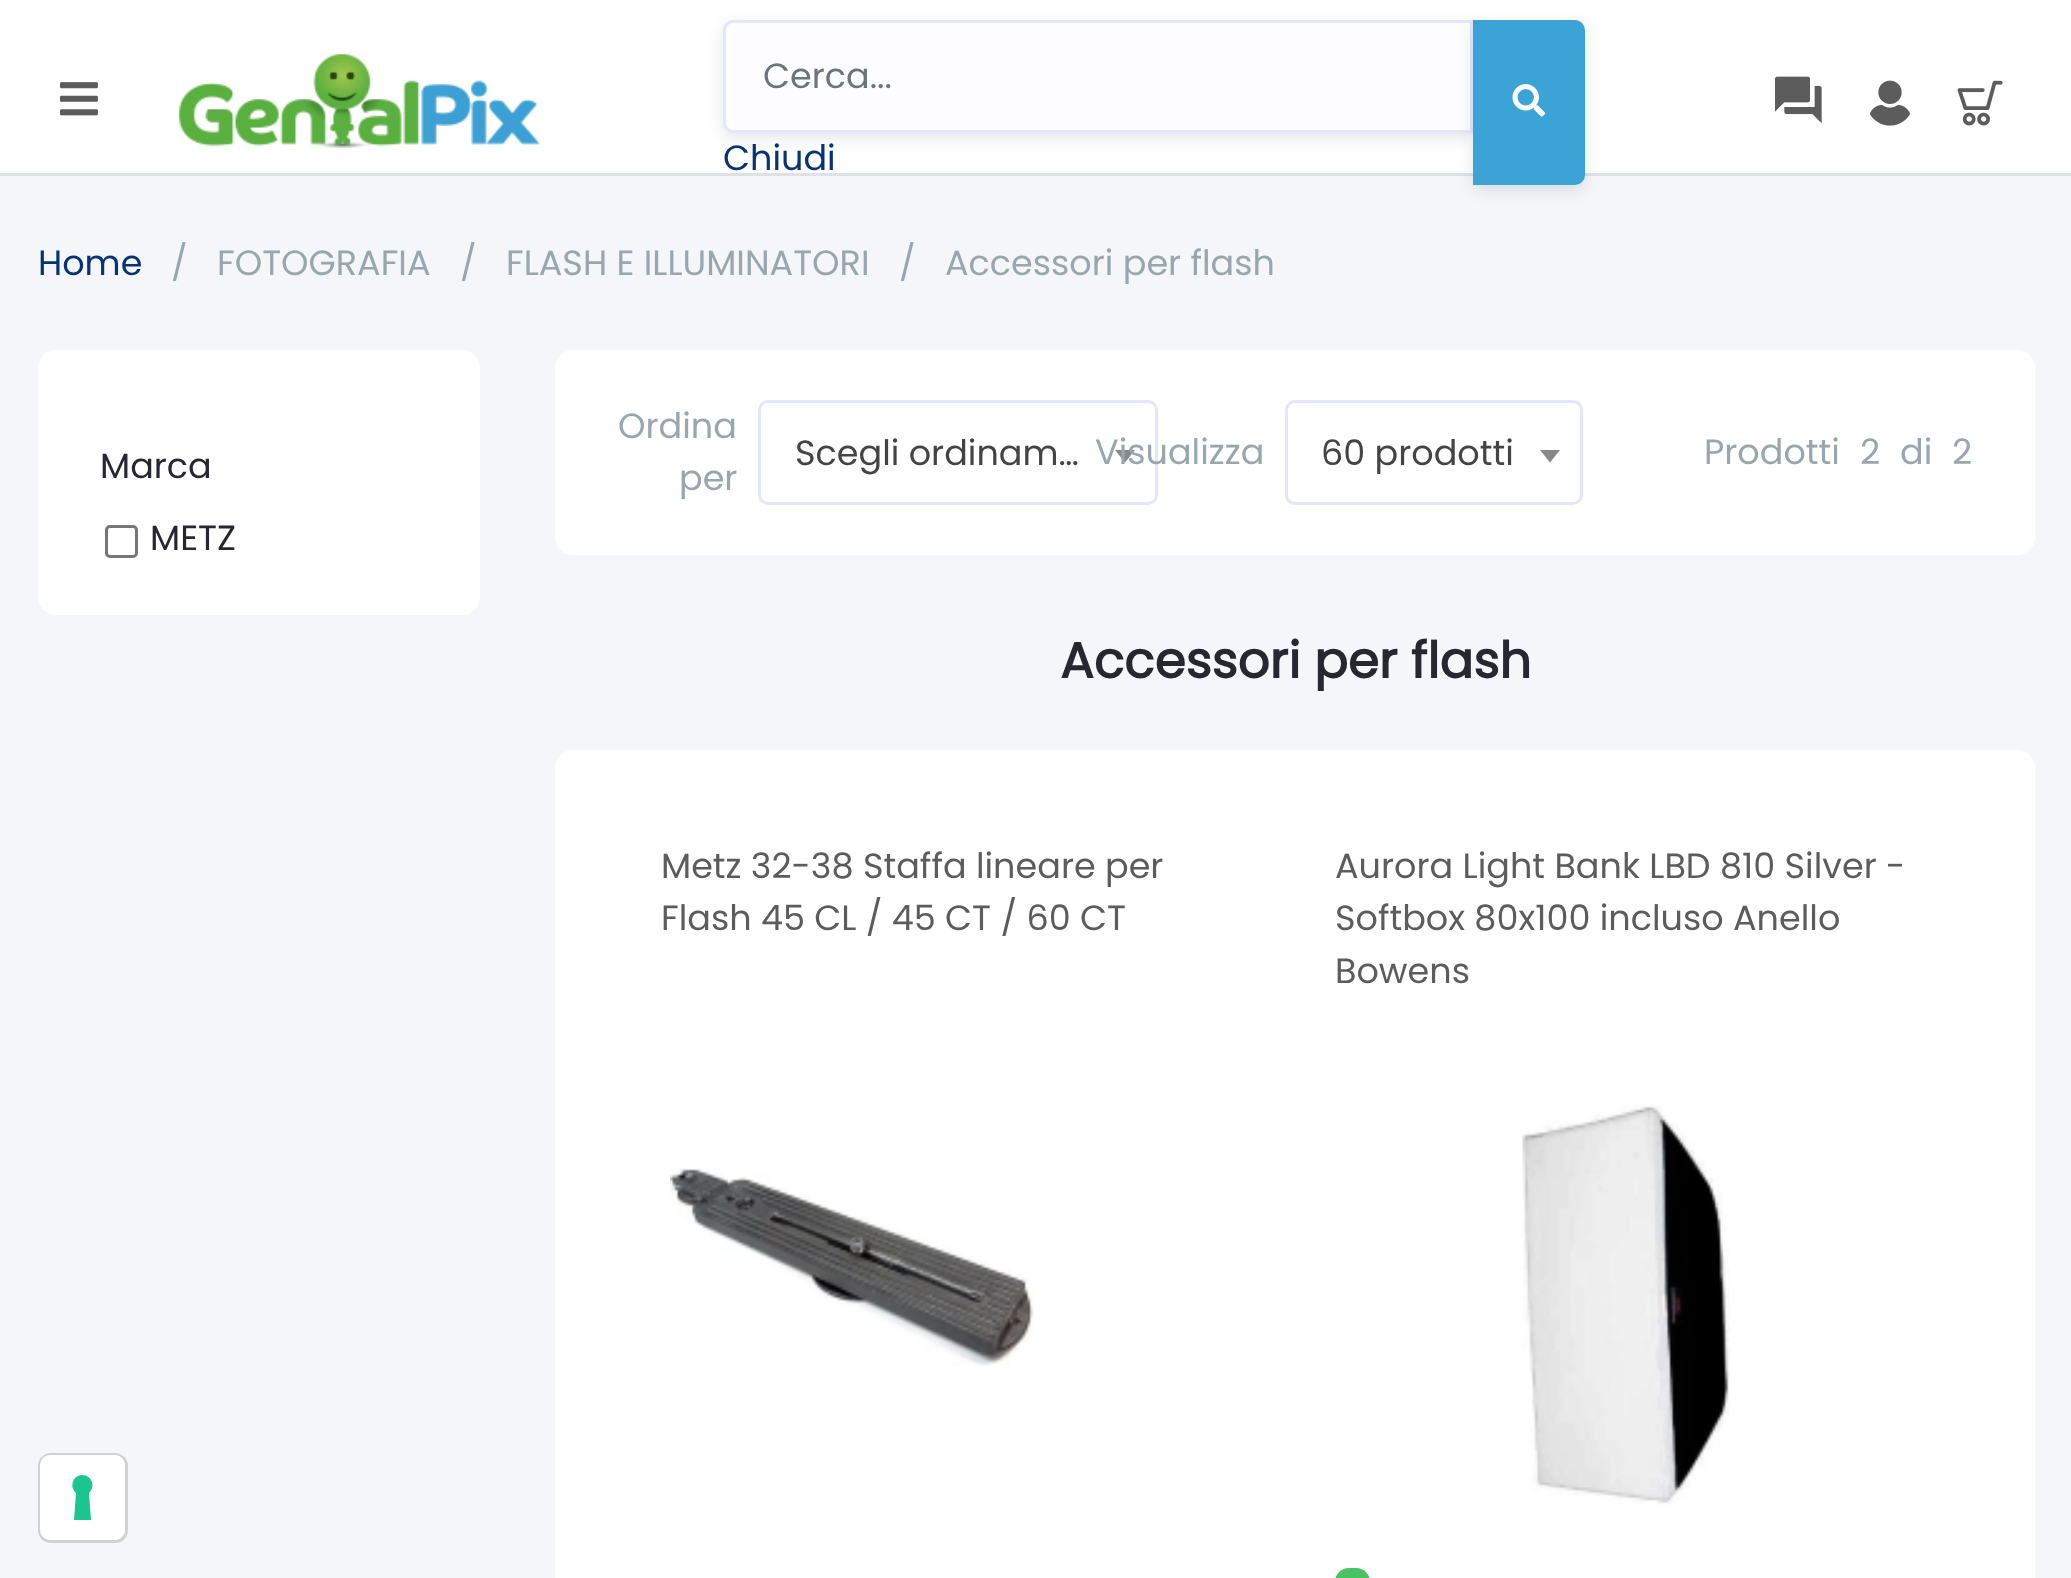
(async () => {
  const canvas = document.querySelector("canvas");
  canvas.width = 2071;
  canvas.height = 1578;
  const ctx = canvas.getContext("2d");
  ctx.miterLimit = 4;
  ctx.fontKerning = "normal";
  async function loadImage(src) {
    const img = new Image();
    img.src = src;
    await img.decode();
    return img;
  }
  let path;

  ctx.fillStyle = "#f4f6f9";
  ctx.fillRect(0, 0, 2071, 1578);
  ctx.fillStyle = "#ffffff";
  ctx.fillRect(0, 0, 2071, 173);
  ctx.fillStyle = "#dee2e6";
  ctx.fillRect(0, 173, 2071, 3);
  ctx.drawImage(await loadImage("img/1.png"), 60, 82, 38, 34);
  ctx.drawImage(await loadImage("img/2.png"), 178, 53, 362, 95);
  ctx.fillStyle = "rgba(51, 73, 94, 0.15)";
  ctx.filter = "blur(7.5px)";
  ctx.beginPath();
  ctx.roundRect(723, 25, 750, 113, 10);
  ctx.fill();
  ctx.filter = "none";
  ctx.fillStyle = "#fdfdff";
  ctx.beginPath();
  ctx.roundRect(724.5, 21.5, 747, 110, [8.5, 0, 0, 8.5]);
  ctx.fill();
  ctx.strokeStyle = "#e4e6fc";
  ctx.lineWidth = 3;
  ctx.stroke();
  ctx.fillStyle = "rgba(51, 73, 94, 0.15)";
  ctx.filter = "blur(7.5px)";
  ctx.beginPath();
  ctx.roundRect(1473, 25, 112, 165, 10);
  ctx.fill();
  ctx.filter = "none";
  ctx.fillStyle = "#3ca3d6";
  ctx.beginPath();
  ctx.roundRect(1474.5, 21.5, 109, 162, [0, 8.5, 8.5, 0]);
  ctx.fill();
  ctx.strokeStyle = "#3ca3d6";
  ctx.stroke();
  ctx.drawImage(await loadImage("img/3.png"), 1512, 84, 33, 33);
  ctx.drawImage(await loadImage("img/4.png"), 1775, 76, 47, 48);
  ctx.drawImage(await loadImage("img/5.png"), 1869, 80, 42, 46);
  ctx.drawImage(await loadImage("img/6.png"), 1957, 80, 46, 46);
  ctx.fillStyle = "#ffffff";
  ctx.beginPath();
  ctx.roundRect(38, 350, 442, 265, 18);
  ctx.fill();
  ctx.beginPath();
  ctx.roundRect(106.5, 526.5, 30, 30, 3.5);
  ctx.strokeStyle = "#767676";
  ctx.stroke();
  ctx.beginPath();
  ctx.roundRect(555, 350, 1480, 205, 18);
  ctx.fill();
  ctx.beginPath();
  ctx.roundRect(759.5, 401.5, 397, 102, 8.5);
  ctx.strokeStyle = "#e4e6fc";
  ctx.stroke();
  ctx.fillStyle = "#888888";
  path = new Path2D("M1115 450H1135L1125 462.5Z");
  ctx.fill(path);
  ctx.beginPath();
  ctx.roundRect(1286.5, 401.5, 295, 102, 8.5);
  ctx.stroke();
  path = new Path2D("M1540 450H1560L1550 462.5Z");
  ctx.fill(path);
  ctx.fillStyle = "#ffffff";
  ctx.beginPath();
  ctx.roundRect(555, 750, 1480, 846, 18);
  ctx.fill();
  ctx.drawImage(await loadImage("img/7.png"), 670, 1168, 364, 198);
  ctx.drawImage(await loadImage("img/8.png"), 1522, 1105, 208, 400);
  ctx.fillStyle = "#47c363";
  ctx.beginPath();
  ctx.roundRect(1335, 1568, 35, 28, 17.5);
  ctx.fill();
  ctx.beginPath();
  ctx.roundRect(39.5, 1454.5, 87, 87, 11.5);
  ctx.strokeStyle = "#cfd1d4";
  ctx.stroke();
  ctx.fillStyle = "#ffffff";
  ctx.beginPath();
  ctx.roundRect(40, 1455, 85, 85, 10);
  ctx.fill();
  ctx.fillStyle = "#1cc691";
  path = new Path2D("M82 1475C92 1475 96 1487 89 1493L91 1520H74L76 1493C69 1487 73 1475 82 1475Z");
  ctx.fill(path, "evenodd");
  ctx.font = "35px Poppins";
  ctx.fillStyle = "#6c757d";
  ctx.fillText("Cerca...", 763, 88);
  ctx.fillStyle = "#063375";
  ctx.fillText("Chiudi", 723, 170);
  ctx.fillText("Home", 38, 275);
  ctx.fillStyle = "#98a6ad";
  for (const [text, x, y] of [
    ["/", 171, 275],
    ["FOTOGRAFIA", 217, 275],
    ["/", 460, 275],
    ["FLASH E ILLUMINATORI", 506, 275],
    ["/", 899, 275],
    ["Accessori per flash", 945, 275],
  ]) {
    ctx.fillText(text, x, y);
  }
  ctx.fillStyle = "#262731";
  ctx.fillText("Marca", 100, 478);
  ctx.fillText("METZ", 150, 550);
  ctx.fillStyle = "#98a6ad";
  ctx.fillText("Ordina", 618, 438);
  ctx.fillText("per", 679, 490);
  ctx.fillStyle = "#444444";
  ctx.fillText("Scegli ordinam…", 795, 465);
  ctx.fillStyle = "#98a6ad";
  ctx.fillText("Visualizza", 1095, 464);
  ctx.fillStyle = "#444444";
  ctx.fillText("60 prodotti", 1321, 465);
  ctx.fillStyle = "#98a6ad";
  for (const [text, x, y] of [
    ["Prodotti", 1704, 464],
    ["2", 1860, 464],
    ["di", 1900, 464],
    ["2", 1952, 464],
  ]) {
    ctx.fillText(text, x, y);
  }
  ctx.font = "bold 50px Poppins";
  ctx.fillStyle = "#262731";
  ctx.fillText("Accessori per flash", 1060, 678);
  ctx.font = "35px Poppins";
  ctx.fillStyle = "#5c5c5c";
  for (const [text, x, y] of [
    ["Metz 32-38 Staffa lineare per", 661, 878],
    ["Flash 45 CL / 45 CT / 60 CT", 661, 930],
    ["Aurora Light Bank LBD 810 Silver -", 1335, 878],
    ["Softbox 80x100 incluso Anello", 1335, 930],
    ["Bowens", 1335, 983],
  ]) {
    ctx.fillText(text, x, y);
  }
})();
